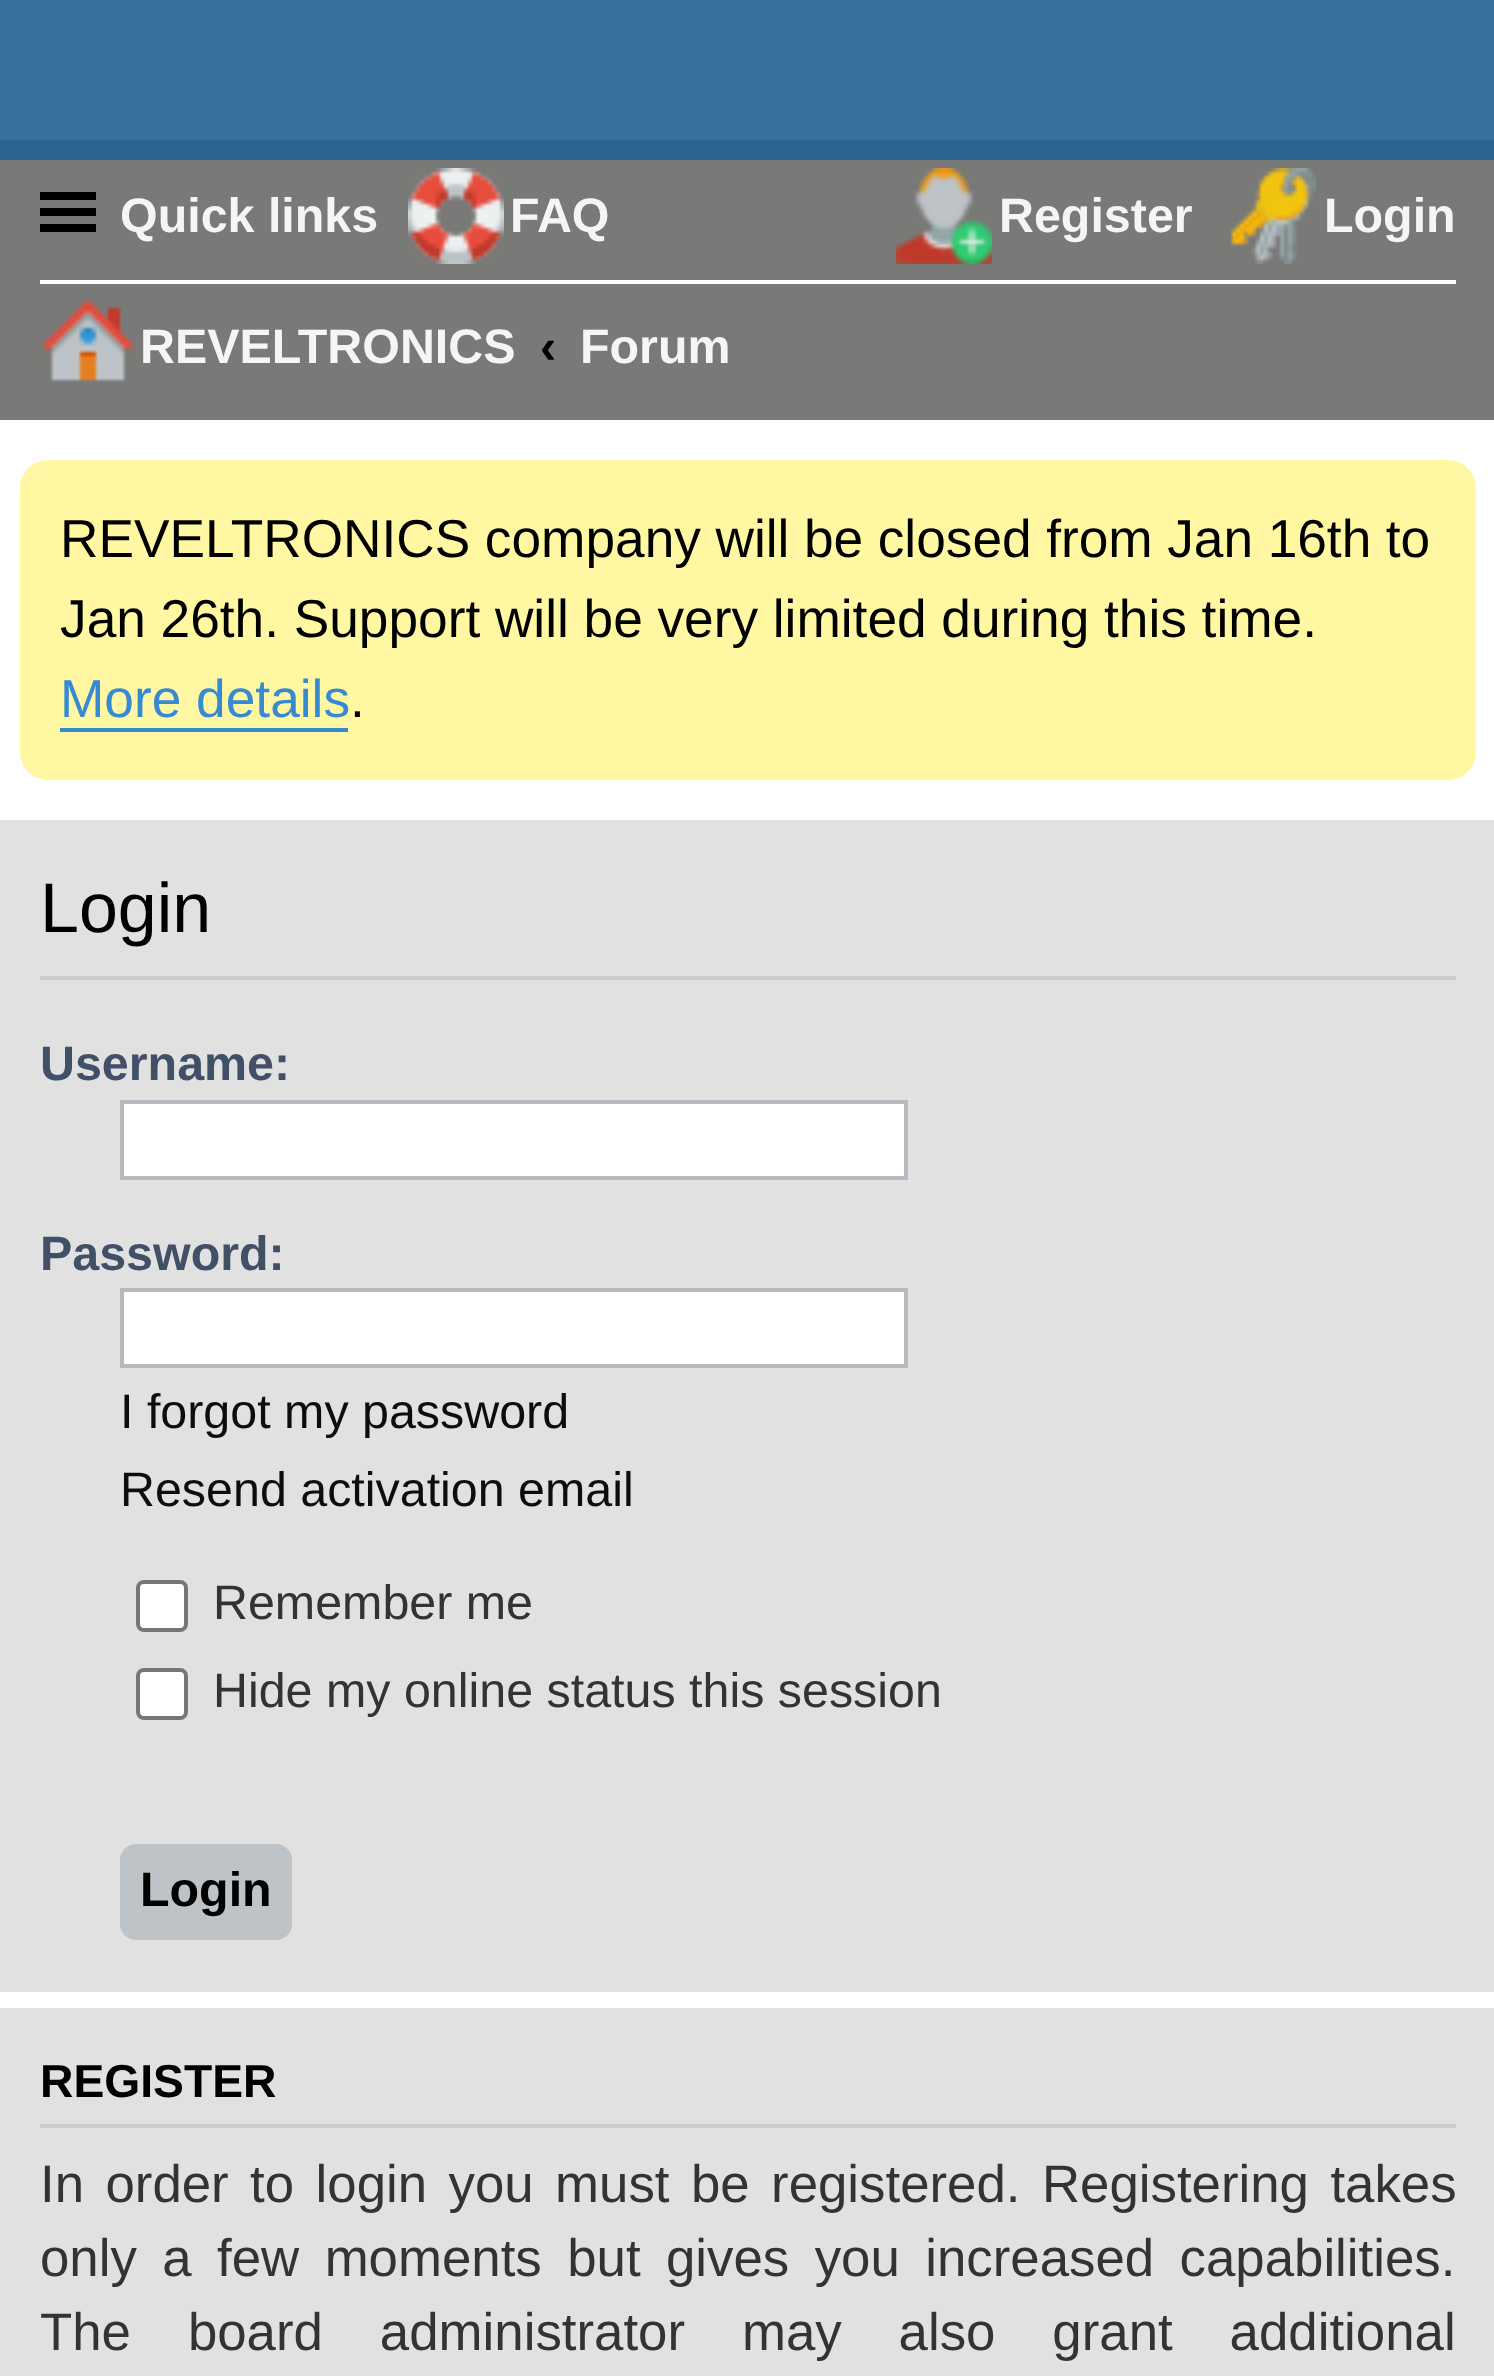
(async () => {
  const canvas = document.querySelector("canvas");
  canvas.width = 1494;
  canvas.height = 2376;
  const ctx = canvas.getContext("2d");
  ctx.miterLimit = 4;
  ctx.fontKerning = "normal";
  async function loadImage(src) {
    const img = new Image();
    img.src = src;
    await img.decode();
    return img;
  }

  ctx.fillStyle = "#38719c";
  ctx.fillRect(0, 0, 1494, 2376);
  for (const [x, y, w, h, color] of [
    [0, 420, 1494, 1588, "#ffffff"],
    [0, 160, 1494, 260, "#797a78"],
    [0, 140, 1494, 20, "#2c658f"],
    [40, 192, 56, 8, "#000000"],
    [40, 208, 56, 8, "#000000"],
    [40, 224, 56, 8, "#000000"],
  ]) {
    ctx.fillStyle = color;
    ctx.fillRect(x, y, w, h);
  }
  ctx.drawImage(await loadImage("img/1.png"), 408, 168, 96, 96);
  ctx.drawImage(await loadImage("img/2.png"), 896, 168, 96, 96);
  ctx.drawImage(await loadImage("img/3.png"), 1230, 168, 86, 96);
  ctx.fillStyle = "#ffffff";
  ctx.fillRect(40, 280, 1416, 4);
  ctx.drawImage(await loadImage("img/4.png"), 40, 298, 96, 84);
  ctx.fillStyle = "#fff7a2";
  ctx.beginPath();
  ctx.roundRect(20, 460, 1456, 320, 28);
  ctx.fill();
  for (const [x, y, w, h, color] of [
    [60, 728, 288, 4, "#368ad2"],
    [0, 820, 1494, 1172, "#e1e1e1"],
    [40, 976, 1416, 4, "#cccccc"],
  ]) {
    ctx.fillStyle = color;
    ctx.fillRect(x, y, w, h);
  }
  ctx.fillStyle = "#ffffff";
  ctx.beginPath();
  ctx.rect(122, 1102, 784, 76);
  ctx.fill();
  ctx.strokeStyle = "#b4bac0";
  ctx.lineWidth = 4;
  ctx.stroke();
  ctx.beginPath();
  ctx.rect(122, 1290, 784, 76);
  ctx.fill();
  ctx.stroke();
  ctx.beginPath();
  ctx.roundRect(138, 1582, 48, 48, 6);
  ctx.fill();
  ctx.strokeStyle = "#767676";
  ctx.stroke();
  ctx.beginPath();
  ctx.roundRect(138, 1670, 48, 48, 6);
  ctx.fill();
  ctx.stroke();
  ctx.fillStyle = "#bdc3c7";
  ctx.beginPath();
  ctx.roundRect(120, 1844, 172, 96, 16);
  ctx.fill();
  ctx.fillStyle = "#e1e1e1";
  ctx.fillRect(0, 2008, 1494, 368);
  ctx.fillStyle = "#cccccc";
  ctx.fillRect(40, 2124, 1416, 4);
  ctx.font = "bold 48.4px Liberation Sans";
  ctx.fillStyle = "#f5f5f5";
  for (const [text, x, y] of [
    ["Quick links", 120, 232],
    ["FAQ", 510, 232],
    ["Register", 999, 232],
    ["Login", 1324, 232],
    ["REVELTRONICS", 140, 363],
  ]) {
    ctx.fillText(text, x, y);
  }
  ctx.fillStyle = "#000000";
  ctx.fillText("‹", 540, 363);
  ctx.fillStyle = "#f5f5f5";
  ctx.fillText("Forum", 580, 363);
  ctx.wordSpacing = "-0.25px";
  ctx.font = "53.25px Liberation Sans";
  ctx.fillStyle = "#000000";
  ctx.fillText("REVELTRONICS company will be closed from Jan 16th to", 60, 557);
  ctx.wordSpacing = "-0.1px";
  ctx.fillText("Jan 26th. Support will be very limited during this time.", 60, 637);
  ctx.wordSpacing = "0px";
  ctx.fillStyle = "#368ad2";
  ctx.fillText("More details", 60, 717);
  ctx.fillStyle = "#000000";
  ctx.fillText(".", 350, 717);
  ctx.font = "70px Liberation Sans";
  ctx.fillText("Login", 40, 932);
  ctx.font = "bold 48.4px Liberation Sans";
  ctx.fillStyle = "#425067";
  ctx.fillText("Username:", 40, 1080);
  ctx.fillText("Password:", 40, 1270);
  ctx.font = "48.4px Liberation Sans";
  ctx.fillStyle = "#0d0d0d";
  ctx.fillText("I forgot my password", 120, 1428);
  ctx.fillText("Resend activation email", 120, 1506);
  ctx.fillStyle = "#333333";
  ctx.fillText("Remember me", 213, 1619);
  ctx.fillText("Hide my online status this session", 213, 1707);
  ctx.font = "bold 48.4px Liberation Sans";
  ctx.fillStyle = "#000000";
  ctx.fillText("Login", 140, 1906);
  ctx.font = "bold 46.25px Liberation Sans";
  ctx.fillText("REGISTER", 40, 2097);
  ctx.wordSpacing = "6.75px";
  ctx.font = "52.8px Liberation Sans";
  ctx.fillStyle = "#333333";
  ctx.fillText("In order to login you must be registered. Registering takes", 40, 2202);
  ctx.wordSpacing = "10.75px";
  ctx.fillText("only a few moments but gives you increased capabilities.", 40, 2276);
  ctx.wordSpacing = "42.25px";
  ctx.fillText("The board administrator may also grant additional", 40, 2350);
})();
